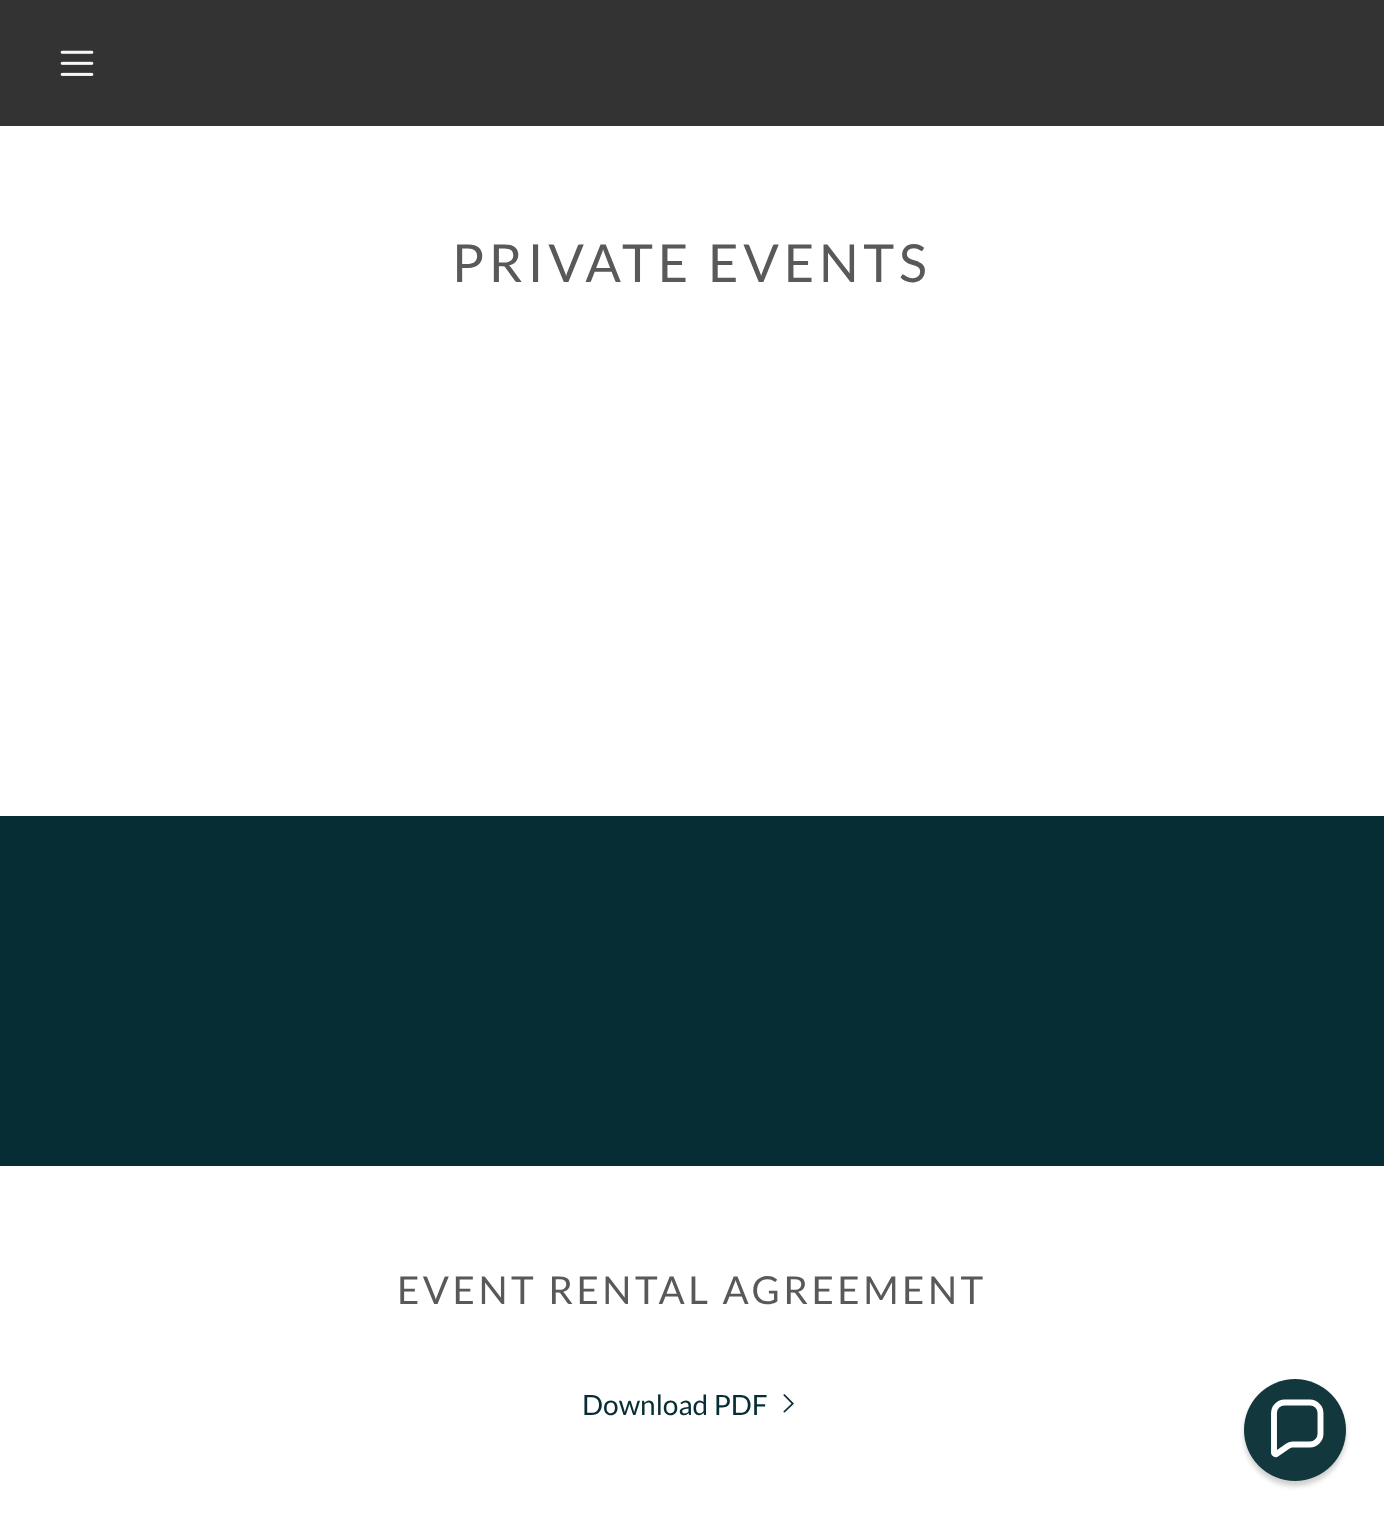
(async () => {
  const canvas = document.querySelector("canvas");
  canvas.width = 1384;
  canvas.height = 1518;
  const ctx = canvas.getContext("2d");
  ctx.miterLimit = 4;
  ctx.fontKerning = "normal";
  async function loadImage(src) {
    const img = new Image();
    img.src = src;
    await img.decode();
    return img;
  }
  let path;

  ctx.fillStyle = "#ffffff";
  ctx.fillRect(0, 0, 1384, 1518);
  ctx.fillStyle = "#333333";
  ctx.fillRect(0, 0, 1384, 126);
  ctx.drawImage(await loadImage("img/1.png"), 60, 50, 34, 26);
  ctx.fillStyle = "#052d33";
  ctx.fillRect(0, 816, 1384, 350);
  ctx.drawImage(await loadImage("img/2.png"), 783, 1394, 11, 19);
  ctx.fillStyle = "rgba(13, 13, 13, 0.2)";
  ctx.filter = "blur(2.5px)";
  ctx.beginPath();
  ctx.roundRect(1244, 1384, 102, 102, 51);
  ctx.fill();
  ctx.filter = "none";
  ctx.fillStyle = "#12383d";
  ctx.beginPath();
  ctx.arc(1295, 1430, 51, 0, Math.PI * 2);
  ctx.fill();
  path = new Path2D("M1310 1402.5H1284.5C1279 1402.5 1274 1407 1274 1413V1453C1274 1454 1275.5 1454.5 1276.5 1454L1288 1446C1289.5 1445 1291 1444.5 1292.5 1444.5H1310C1315.5 1444.5 1320.5 1439.5 1320.5 1434V1413C1320.5 1407 1315.5 1402.5 1310 1402.5Z");
  ctx.strokeStyle = "#ffffff";
  ctx.lineWidth = 5.9;
  ctx.stroke(path);
  ctx.letterSpacing = "4.75px";
  ctx.font = "52.5px Lato";
  ctx.fillStyle = "#595959";
  ctx.fillText("PRIVATE EVENTS", 452, 282);
  ctx.letterSpacing = "3.5px";
  ctx.font = "38.5px Lato";
  ctx.fillText("EVENT RENTAL AGREEMENT", 397, 1304);
  ctx.letterSpacing = "0px";
  ctx.font = "28px Lato";
  ctx.fillStyle = "#052d33";
  ctx.fillText("Download PDF", 582, 1415);
})();
